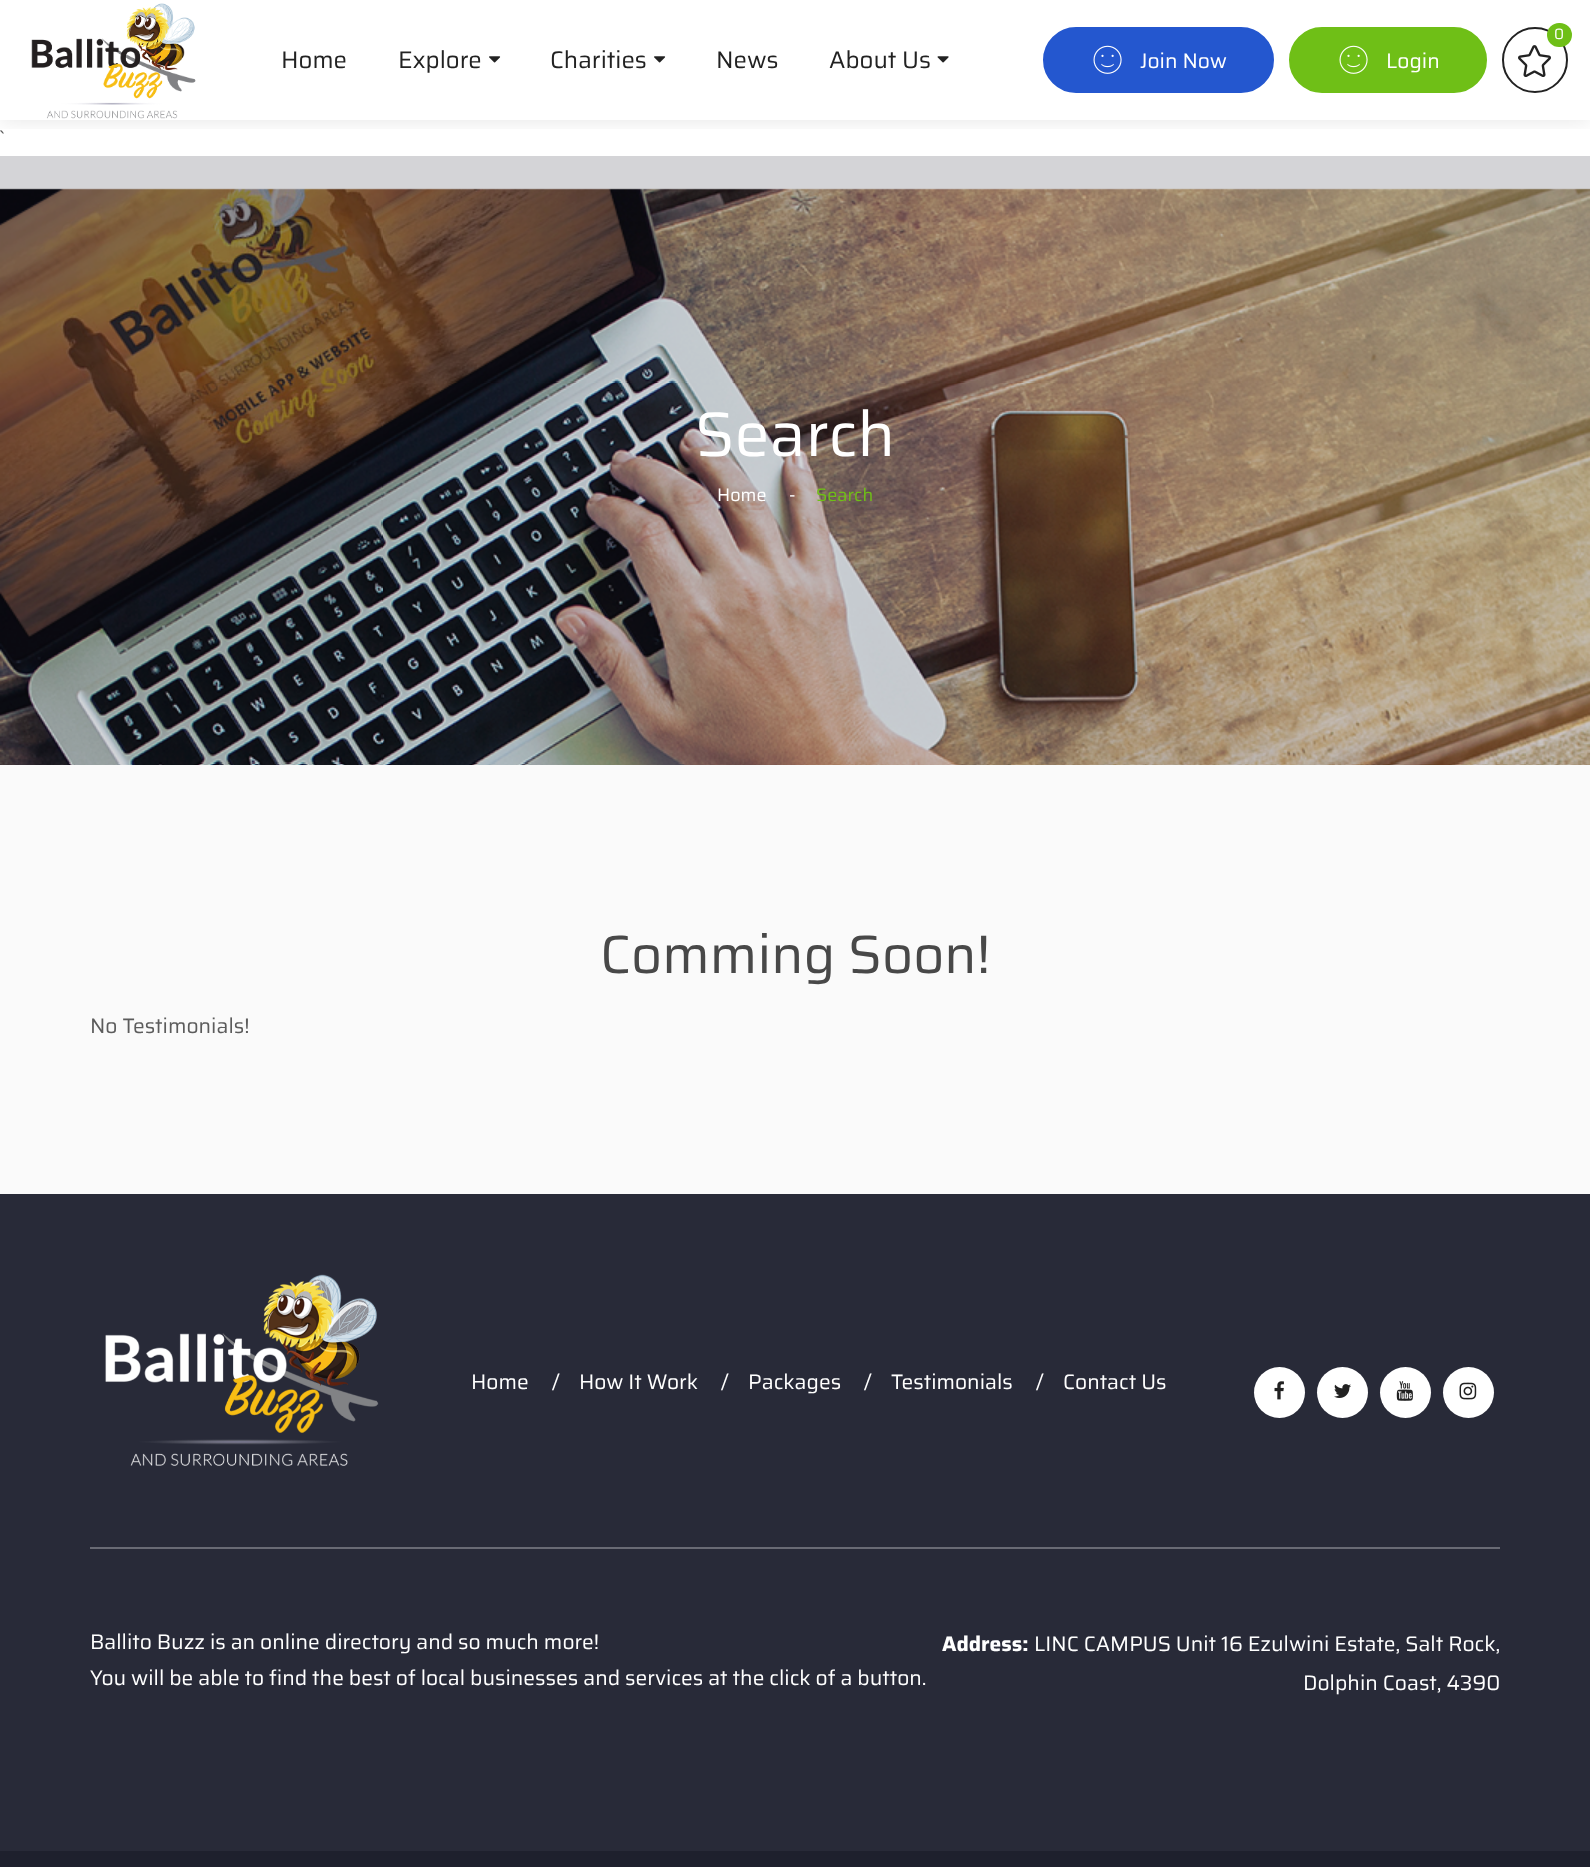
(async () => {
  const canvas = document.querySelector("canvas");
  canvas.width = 1590;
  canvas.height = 1867;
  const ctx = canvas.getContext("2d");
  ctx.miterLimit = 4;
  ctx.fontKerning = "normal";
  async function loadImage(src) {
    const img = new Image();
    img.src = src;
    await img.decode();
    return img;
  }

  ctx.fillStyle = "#ffffff";
  ctx.fillRect(0, 0, 1590, 1867);
  ctx.fillStyle = "#d4d4d7";
  ctx.fillRect(0, 156, 1590, 34);
  ctx.save();
  ctx.beginPath();
  ctx.rect(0, 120, 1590, 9);
  ctx.clip();
  ctx.fillStyle = "rgba(0, 0, 0, 0.1)";
  ctx.filter = "blur(11px)";
  ctx.beginPath();
  ctx.rect(0, 0, 1590, 120);
  ctx.fill();
  ctx.filter = "none";
  ctx.restore();
  ctx.drawImage(await loadImage("img/1.png"), 31, 3, 165, 116);
  ctx.drawImage(await loadImage("img/2.png"), 489, 56, 12, 7);
  ctx.drawImage(await loadImage("img/2.png"), 654, 56, 12, 7);
  ctx.drawImage(await loadImage("img/3.png"), 937, 56, 12, 7);
  ctx.beginPath();
  ctx.arc(1535, 60, 32, 0, Math.PI * 2);
  ctx.strokeStyle = "#222222";
  ctx.lineWidth = 2;
  ctx.stroke();
  ctx.drawImage(await loadImage("img/4.png"), 1518, 45, 33, 32);
  ctx.fillStyle = "#6fbf17";
  ctx.beginPath();
  ctx.roundRect(1547, 23, 25, 24, 12);
  ctx.fill();
  ctx.fillStyle = "#2457cf";
  ctx.beginPath();
  ctx.roundRect(1044, 28, 229, 64, 32);
  ctx.fill();
  ctx.strokeStyle = "#2457cf";
  ctx.stroke();
  ctx.drawImage(await loadImage("img/5.png"), 1093, 45, 29, 29);
  ctx.fillStyle = "#6fbf17";
  ctx.beginPath();
  ctx.roundRect(1290, 28, 196, 64, 32);
  ctx.fill();
  ctx.strokeStyle = "#6fbf17";
  ctx.stroke();
  ctx.drawImage(await loadImage("img/6.png"), 1339, 45, 29, 29);
  ctx.drawImage(await loadImage("img/7.png"), 0, 188, 1590, 577);
  for (const [x, y, w, h, color] of [
    [0, 765, 1590, 429, "#fafafa"],
    [0, 1194, 1590, 657, "#282a38"],
    [90, 1547, 1410, 2, "#696a74"],
  ]) {
    ctx.fillStyle = color;
    ctx.fillRect(x, y, w, h);
  }
  ctx.drawImage(await loadImage("img/8.png"), 105, 1274, 274, 192);
  ctx.fillStyle = "#ffffff";
  ctx.beginPath();
  ctx.arc(1279.5, 1392.5, 25.5, 0, Math.PI * 2);
  ctx.fill();
  ctx.drawImage(await loadImage("img/9.png"), 1274, 1381, 10, 19);
  ctx.beginPath();
  ctx.arc(1342.5, 1392.5, 25.5, 0, Math.PI * 2);
  ctx.fill();
  ctx.drawImage(await loadImage("img/10.png"), 1334, 1384, 17, 14);
  ctx.beginPath();
  ctx.arc(1405.5, 1392.5, 25.5, 0, Math.PI * 2);
  ctx.fill();
  ctx.drawImage(await loadImage("img/11.png"), 1396, 1381, 17, 20);
  ctx.beginPath();
  ctx.arc(1468.5, 1392.5, 25.5, 0, Math.PI * 2);
  ctx.fill();
  ctx.drawImage(await loadImage("img/12.png"), 1459, 1382, 18, 18);
  ctx.fillStyle = "#1e202d";
  ctx.fillRect(0, 1851, 1590, 16);
  ctx.font = "21px Saira";
  ctx.fillStyle = "#5c5c5c";
  ctx.fillText("`", 0, 146);
  ctx.font = "24px Saira";
  ctx.fillStyle = "#222222";
  for (const [text, x, y] of [
    ["Home", 281, 68],
    ["Explore", 398, 68],
    ["Charities", 550, 68],
    ["News", 716, 68],
    ["About Us", 829, 68],
  ]) {
    ctx.fillText(text, x, y);
  }
  ctx.font = "15px Saira";
  ctx.fillStyle = "#ffffff";
  ctx.fillText("0", 1554, 39);
  ctx.font = "21px Saira";
  ctx.fillText("Join Now", 1140, 68);
  ctx.fillText("Login", 1386, 68);
  ctx.font = "63px Saira";
  ctx.fillText("Search", 695, 456);
  ctx.font = "18px Saira";
  ctx.fillText("Home", 717, 501);
  ctx.fillText("-", 789, 501);
  ctx.fillStyle = "#6fbf17";
  ctx.fillText("Search", 816, 501);
  ctx.font = "54px Saira";
  ctx.fillStyle = "#484848";
  ctx.fillText("Comming Soon!", 600, 973);
  ctx.font = "21px Saira";
  ctx.fillStyle = "#5c5c5c";
  ctx.fillText("No Testimonials!", 90, 1033);
  ctx.fillStyle = "#ffffff";
  for (const [text, x, y] of [
    ["Home", 471, 1389],
    ["/", 552, 1389],
    ["How It Work", 579, 1389],
    ["/", 721, 1389],
    ["Packages", 748, 1389],
    ["/", 864, 1389],
    ["Testimonials", 891, 1389],
    ["/", 1036, 1389],
    ["Contact Us", 1063, 1389],
    ["Ballito Buzz is an online directory and so much more!", 90, 1649],
    ["You will be able to find the best of local businesses and services at the click of a button.", 90, 1685],
  ]) {
    ctx.fillText(text, x, y);
  }
  ctx.font = "bold 21px Saira";
  ctx.fillText("Address:", 942, 1651);
  ctx.font = "21px Saira";
  ctx.fillText("LINC CAMPUS Unit 16 Ezulwini Estate, Salt Rock,", 1034, 1651);
  ctx.fillText("Dolphin Coast, 4390", 1303, 1690);
})();
